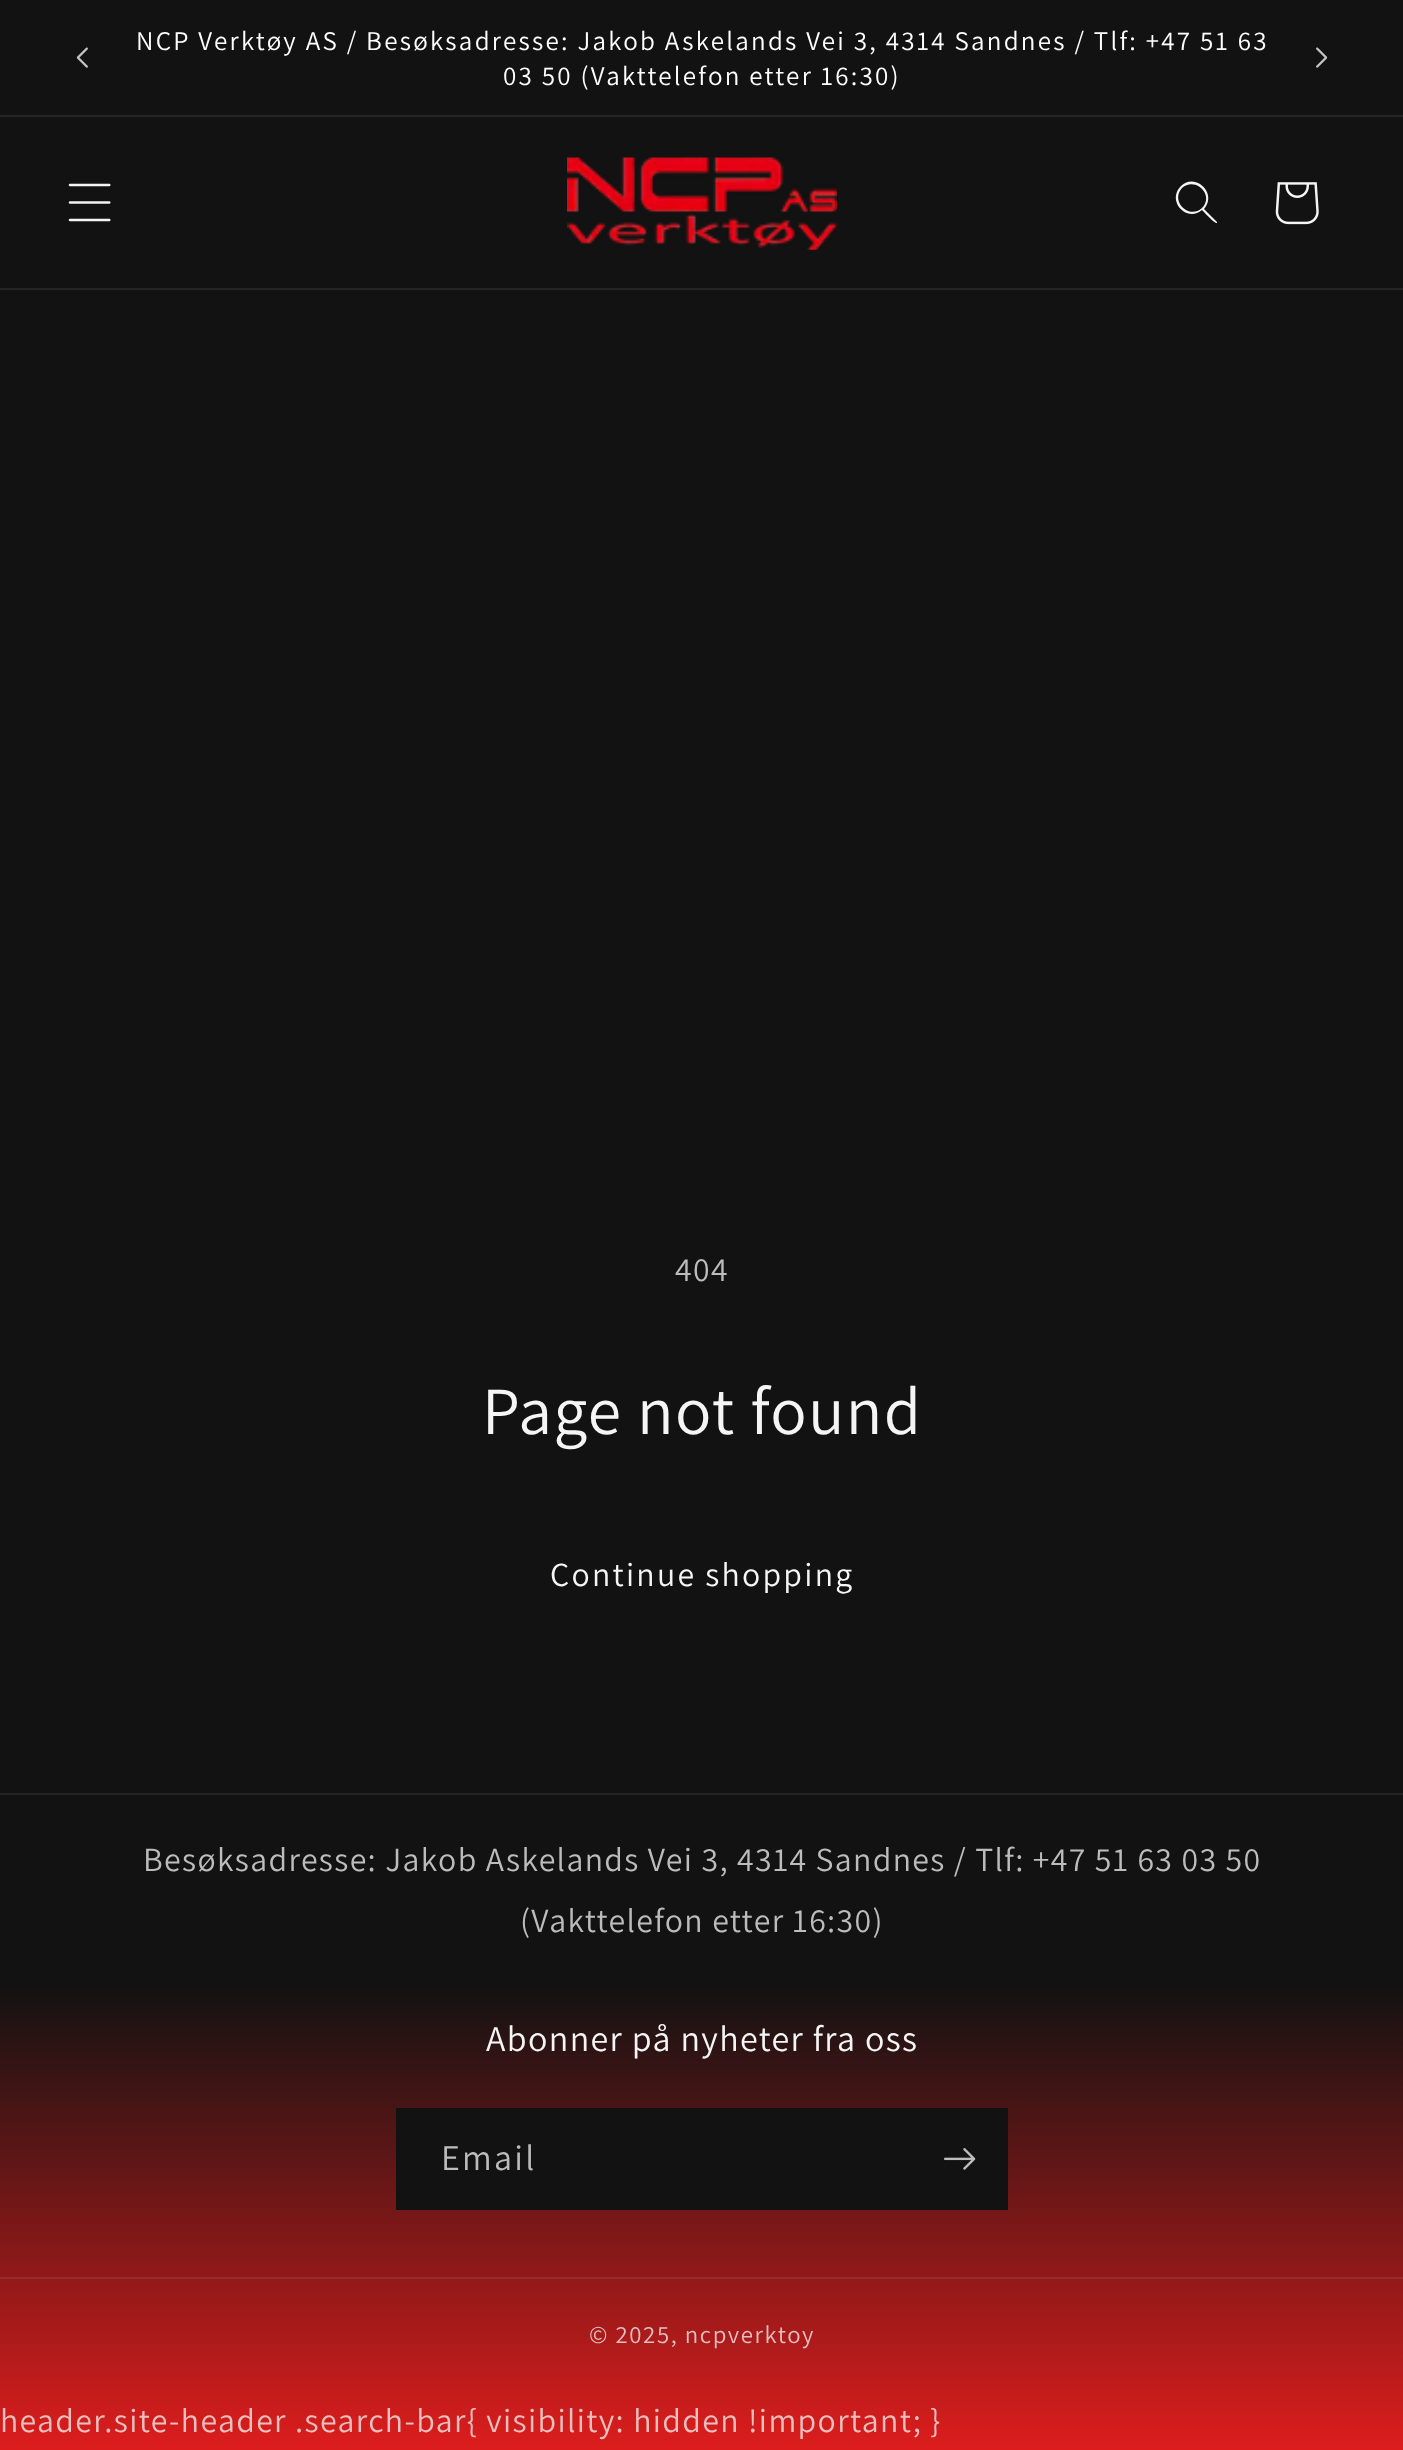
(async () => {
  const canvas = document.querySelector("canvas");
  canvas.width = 1403;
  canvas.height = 2450;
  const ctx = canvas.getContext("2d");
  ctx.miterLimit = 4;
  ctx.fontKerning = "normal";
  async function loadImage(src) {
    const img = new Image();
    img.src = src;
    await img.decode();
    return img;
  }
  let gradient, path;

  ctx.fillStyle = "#ffffff";
  ctx.fillRect(0, 0, 1403, 2450);
  gradient = ctx.createLinearGradient(702, 2450, 702, 0);
  gradient.addColorStop(0, "#dd1d1d");
  gradient.addColorStop(0.19, "#121212");
  gradient.addColorStop(0.42, "#121212");
  ctx.fillStyle = gradient;
  ctx.fillRect(0, 0, 1403, 2450);
  ctx.fillStyle = "#252525";
  ctx.fillRect(0, 115, 1403, 2);
  ctx.drawImage(await loadImage("img/1.png"), 76, 47, 12, 21);
  ctx.drawImage(await loadImage("img/2.png"), 1316, 47, 12, 21);
  ctx.fillStyle = "#242424";
  ctx.fillRect(0, 288, 1403, 2);
  ctx.drawImage(await loadImage("img/3.png"), 68, 183, 43, 39);
  ctx.drawImage(await loadImage("img/4.png"), 567, 157, 270, 93);
  ctx.fillStyle = "#f5f5f5";
  path = new Path2D("M1202 208C1189 220 1170 201 1182 188C1195 176 1215 195 1202 208ZM1202 210C1187 223 1166 201 1181 186C1195 172 1218 193 1204 209L1217 222V223C1215 224 1204 212 1202 210Z");
  ctx.fill(path, "evenodd");
  ctx.drawImage(await loadImage("img/5.png"), 1275, 182, 44, 43);
  ctx.fillStyle = "#242424";
  ctx.fillRect(0, 1793, 1403, 2);
  ctx.fillStyle = "#121212";
  ctx.fillRect(396, 2108, 612, 102);
  ctx.drawImage(await loadImage("img/6.png"), 944, 2148, 32, 22);
  ctx.fillStyle = "#9a2b2b";
  ctx.fillRect(0, 2277, 1403, 2);
  ctx.letterSpacing = "2.25px";
  ctx.font = "27px Assistant";
  ctx.fillStyle = "#ffffff";
  ctx.fillText("NCP Verktøy AS / Besøksadresse: Jakob Askelands Vei 3, 4314 Sandnes / Tlf: +47 51 63", 136, 50);
  ctx.fillText("03 50 (Vakttelefon etter 16:30)", 503, 85);
  ctx.letterSpacing = "1.35px";
  ctx.font = "33.75px Assistant";
  ctx.fillStyle = "#bcbcbc";
  ctx.fillText("404", 675, 1281);
  ctx.font = "67.5px Assistant";
  ctx.fillStyle = "#f5f5f5";
  ctx.fillText("Page not found", 482, 1434);
  ctx.letterSpacing = "2.25px";
  ctx.font = "33.75px Assistant";
  ctx.fillText("Continue shopping", 550, 1586);
  ctx.letterSpacing = "1.35px";
  ctx.fillStyle = "#bcbcbc";
  ctx.fillText("Besøksadresse: Jakob Askelands Vei 3, 4314 Sandnes / Tlf: +47 51 63 03 50", 143, 1871);
  ctx.fillText("(Vakttelefon etter 16:30)", 520, 1932);
  ctx.font = "36px Assistant";
  ctx.fillStyle = "#f5f5f5";
  ctx.fillText("Abonner på nyheter fra oss", 486, 2051);
  ctx.letterSpacing = "2.25px";
  ctx.fillStyle = "#bcbcbc";
  ctx.fillText("Email", 441, 2170);
  ctx.letterSpacing = "1.6px";
  ctx.font = "24.75px Assistant";
  ctx.fillStyle = "#e3bebe";
  ctx.fillText("© 2025, ncpverktoy", 589, 2343);
  ctx.letterSpacing = "1.35px";
  ctx.font = "33.75px Assistant";
  ctx.fillStyle = "#ecbfbf";
  ctx.fillText("header.site-header .search-bar{ visibility: hidden !important; }", 0, 2432);
})();
